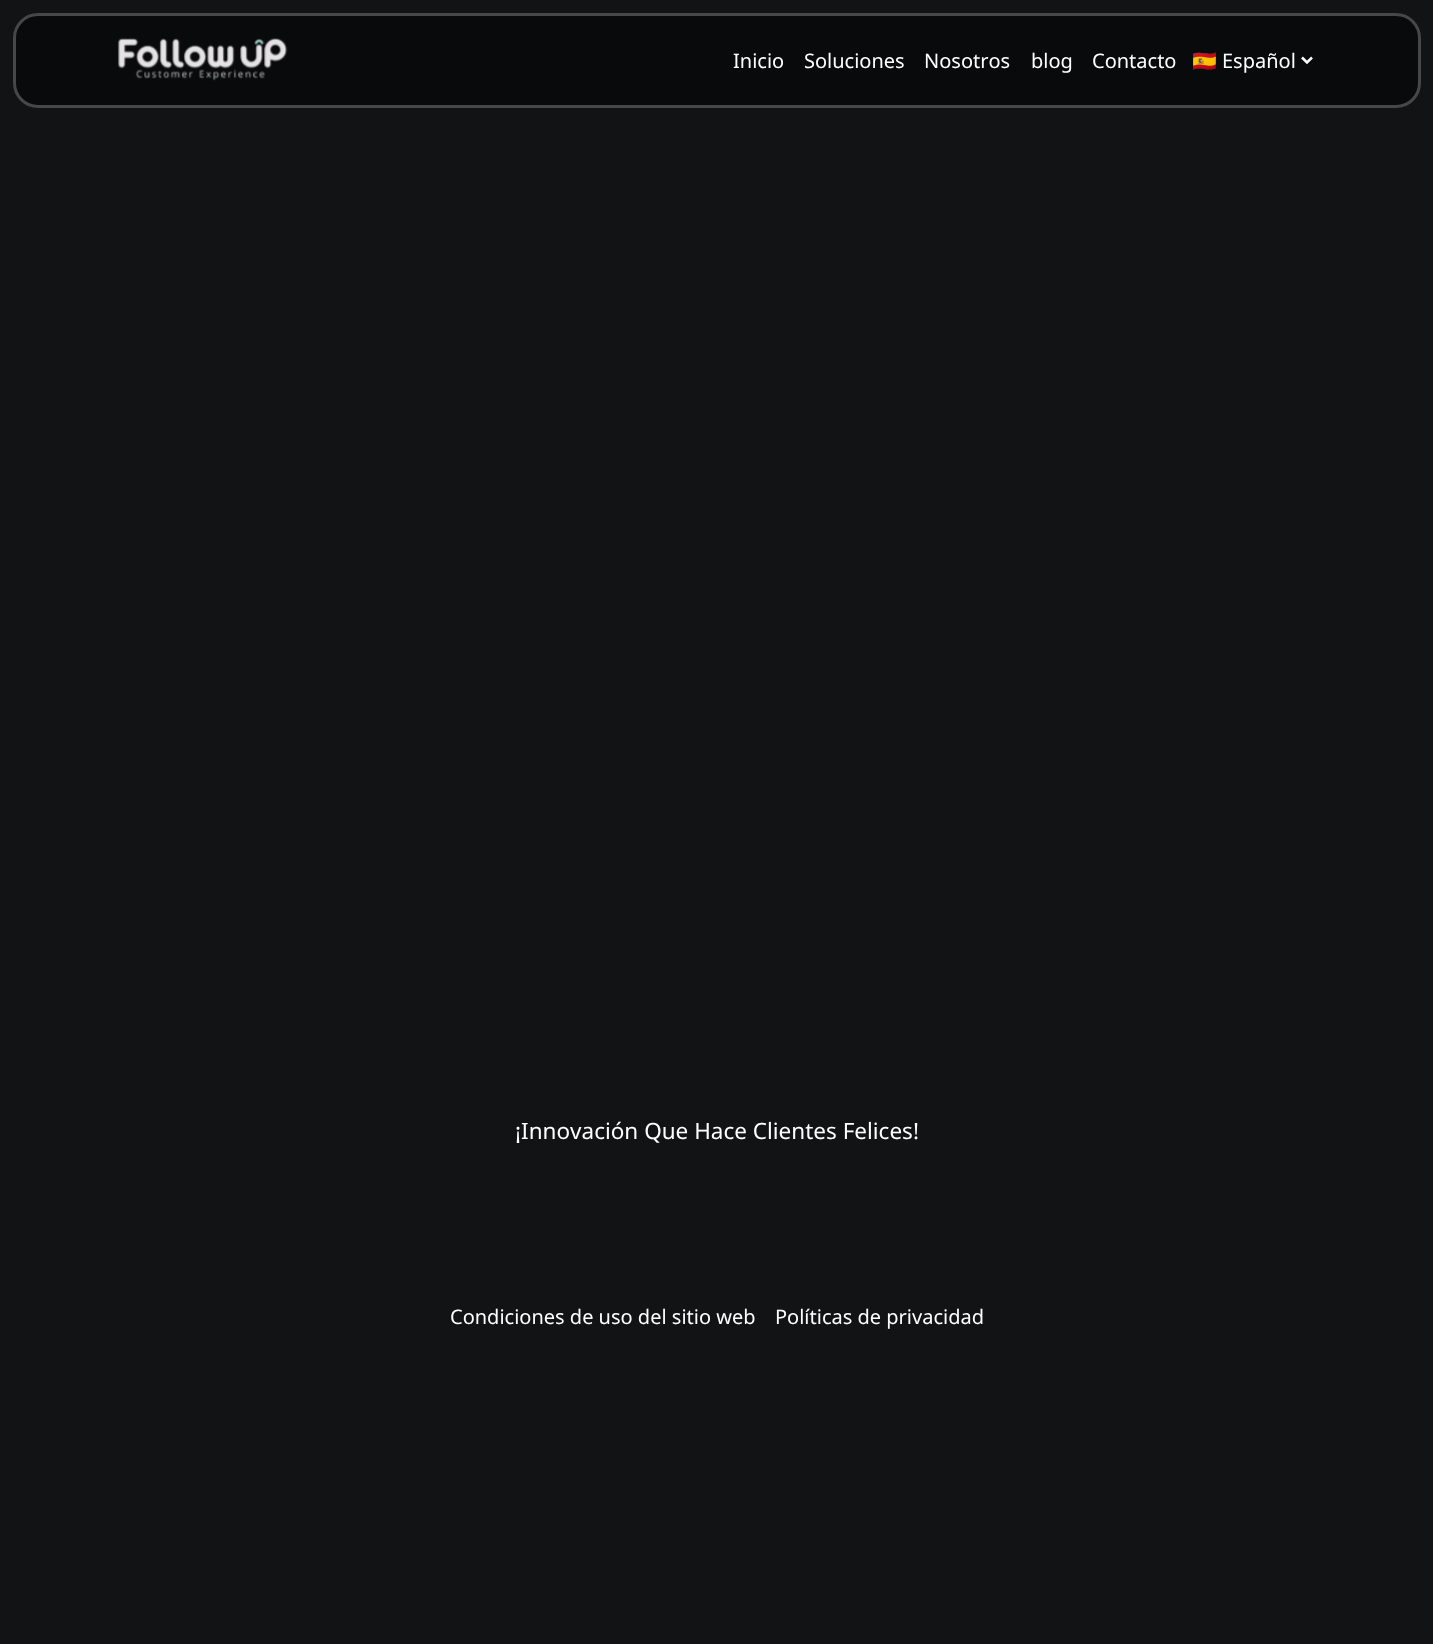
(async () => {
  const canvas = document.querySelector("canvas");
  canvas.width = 1433;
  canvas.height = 1644;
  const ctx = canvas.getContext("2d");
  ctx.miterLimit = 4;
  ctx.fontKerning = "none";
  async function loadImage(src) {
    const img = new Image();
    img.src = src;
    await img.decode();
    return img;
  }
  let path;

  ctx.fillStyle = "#121315";
  ctx.fillRect(0, 0, 1433, 1644);
  ctx.fillStyle = "#090a0b";
  ctx.beginPath();
  ctx.roundRect(13, 13, 1408, 95, 25);
  ctx.fill();
  ctx.beginPath();
  ctx.roundRect(14.5, 14.5, 1405, 92, 23.5);
  ctx.strokeStyle = "rgba(255, 255, 255, 0.25)";
  ctx.lineWidth = 3;
  ctx.stroke();
  ctx.drawImage(await loadImage("img/1.png"), 117, 38, 171, 43);
  path = new Path2D("M1302 57.5L1307 62.5L1312 57.5");
  ctx.strokeStyle = "#ffffff";
  ctx.lineWidth = 2.5;
  ctx.stroke(path);
  ctx.font = "20px Noto Sans";
  ctx.fillStyle = "#ffffff";
  for (const [text, x, y] of [
    ["Inicio", 733, 68],
    ["Soluciones", 804, 68],
    ["Nosotros", 924, 68],
    ["blog", 1031, 68],
    ["Contacto", 1092, 68],
  ]) {
    ctx.fillText(text, x, y);
  }
  ctx.save();
  ctx.beginPath();
  ctx.rect(1193, 45, 105, 30);
  ctx.clip();
  ctx.font = "20px Noto Color Emoji";
  ctx.fillText("🇪🇸", 1192, 68);
  ctx.restore();
  ctx.fillText("Español", 1222, 68);
  ctx.font = "22.5px Noto Sans";
  ctx.fillText("¡Innovación Que Hace Clientes Felices!", 515, 1139);
  ctx.font = "20px Noto Sans";
  ctx.fillText("Condiciones de uso del sitio web", 450, 1324);
  ctx.fillText("Políticas de privacidad", 775, 1324);
})();
